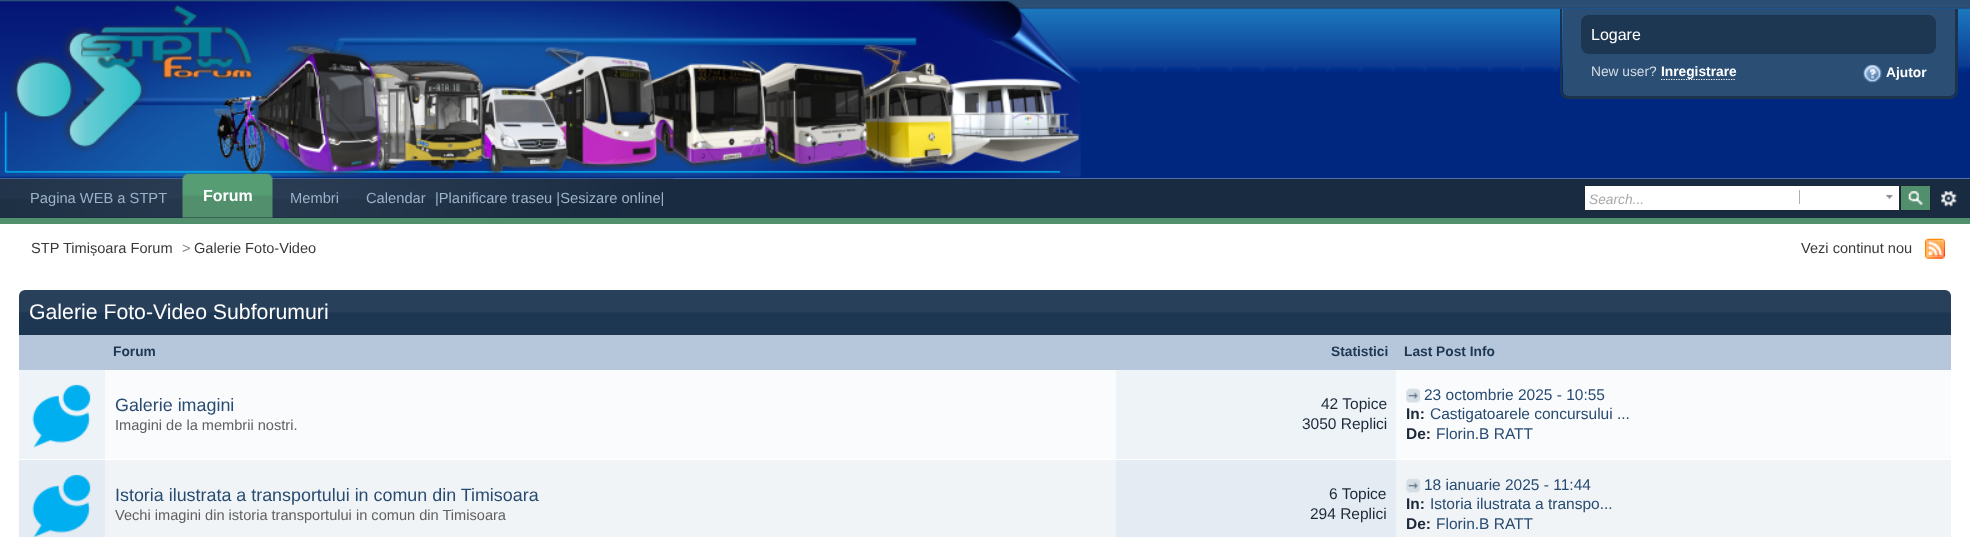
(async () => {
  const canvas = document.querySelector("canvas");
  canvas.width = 1970;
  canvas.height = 537;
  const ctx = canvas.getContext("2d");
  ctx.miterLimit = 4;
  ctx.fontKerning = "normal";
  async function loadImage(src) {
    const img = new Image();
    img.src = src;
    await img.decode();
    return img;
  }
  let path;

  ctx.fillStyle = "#ffffff";
  ctx.fillRect(0, 0, 1970, 537);
  ctx.drawImage(await loadImage("img/1.png"), 0, 0, 1970, 179);
  ctx.drawImage(await loadImage("img/2.png"), 0, 1, 1081, 177);
  ctx.fillStyle = "#2b4f74";
  ctx.beginPath();
  ctx.roundRect(1563, 9, 392, 87, [0, 0, 5, 5]);
  ctx.fill();
  ctx.fillStyle = "#1c334e";
  path = new Path2D("M1560 9H1958V91C1958 95 1954 99 1950 99H1568C1563 99 1560 95 1560 91ZM1562 9H1955V91C1955 94 1953 96 1950 96H1568C1565 96 1562 94 1562 91Z");
  ctx.fill(path, "evenodd");
  ctx.fillStyle = "#1d3652";
  ctx.beginPath();
  ctx.roundRect(1581, 15, 355, 39, 8);
  ctx.fill();
  path = new Path2D("M1661 79.5H1736");
  ctx.strokeStyle = "#ffffff";
  ctx.lineWidth = 1.2;
  ctx.setLineDash([1.25, 1.25]);
  ctx.stroke(path);
  ctx.drawImage(await loadImage("img/3.png"), 1863, 64, 19, 19);
  ctx.fillStyle = "#192b40";
  ctx.fillRect(0, 179, 1970, 39);
  ctx.drawImage(await loadImage("img/4.png"), 0, 178, 674, 40);
  ctx.fillStyle = "#528f6c";
  ctx.fillRect(0, 218, 1970, 6);
  ctx.drawImage(await loadImage("img/5.png"), 182, 173, 8, 45);
  ctx.drawImage(await loadImage("img/6.png"), 190, 173, 83, 45);
  ctx.fillStyle = "#ffffff";
  ctx.beginPath();
  ctx.rect(1584.5, 185.5, 315, 25);
  ctx.fill();
  ctx.strokeStyle = "#1a2735";
  ctx.lineWidth = 1;
  ctx.setLineDash([]);
  ctx.stroke();
  ctx.drawImage(await loadImage("img/7.png"), 1886, 194, 7, 5);
  ctx.fillStyle = "#afafaf";
  ctx.fillRect(1799, 190, 1, 14);
  ctx.fillStyle = "#528f6c";
  ctx.fillRect(1901, 186, 29, 24);
  ctx.drawImage(await loadImage("img/8.png"), 1908, 191, 15, 14);
  ctx.strokeRect(1900.5, 185.5, 30, 25);
  ctx.drawImage(await loadImage("img/9.png"), 1941, 191, 16, 16);
  ctx.drawImage(await loadImage("img/10.png"), 1925, 238, 20, 21);
  ctx.fillStyle = "#1d3652";
  ctx.beginPath();
  ctx.roundRect(19, 290, 1932, 45, [6, 6, 0, 0]);
  ctx.fill();
  ctx.drawImage(await loadImage("img/11.png"), 19, 290, 1932, 23);
  for (const [x, y, w, h, color] of [
    [19, 335, 1932, 35, "#b6c7db"],
    [105, 370, 1846, 89, "#fafbfc"],
    [19, 370, 86, 89, "#eef3f8"],
  ]) {
    ctx.fillStyle = color;
    ctx.fillRect(x, y, w, h);
  }
  ctx.drawImage(await loadImage("img/12.png"), 32, 384, 59, 64);
  ctx.fillRect(1116, 370, 280, 89);
  ctx.drawImage(await loadImage("img/13.png"), 1406, 388, 14, 15);
  ctx.fillStyle = "#f1f4f7";
  ctx.fillRect(105, 460, 1846, 77);
  ctx.fillStyle = "#e4ebf2";
  ctx.fillRect(19, 460, 86, 77);
  ctx.drawImage(await loadImage("img/14.png"), 32, 474, 59, 63);
  ctx.fillRect(1116, 460, 280, 77);
  ctx.drawImage(await loadImage("img/15.png"), 1406, 478, 14, 15);
  ctx.font = "16px Liberation Sans";
  ctx.fillStyle = "#ffffff";
  ctx.fillText("Logare", 1591, 40);
  ctx.font = "13.75px Liberation Sans";
  ctx.fillStyle = "#d5dde5";
  ctx.fillText("New user?", 1591, 76);
  ctx.font = "bold 13.75px Liberation Sans";
  ctx.fillStyle = "#ffffff";
  ctx.fillText("Inregistrare", 1661, 76);
  ctx.fillText("Ajutor", 1886, 77);
  ctx.font = "14.7px Liberation Sans";
  ctx.fillStyle = "#9bb2c8";
  ctx.fillText("Pagina WEB a STPT", 30, 203);
  ctx.font = "bold 16px Liberation Sans";
  ctx.fillStyle = "#ffffff";
  ctx.fillText("Forum", 203, 201);
  ctx.font = "14.7px Liberation Sans";
  ctx.fillStyle = "#9bb2c8";
  for (const [text, x, y] of [
    ["Membri", 290, 203],
    ["Calendar", 366, 203],
    ["|Planificare traseu |Sesizare online|", 435, 203],
  ]) {
    ctx.fillText(text, x, y);
  }
  ctx.font = "italic 13.75px Liberation Sans";
  ctx.fillStyle = "#a9a9a9";
  ctx.fillText("Search...", 1589, 204);
  ctx.font = "14.6px Liberation Sans";
  ctx.fillStyle = "#393939";
  ctx.fillText("STP Timișoara Forum", 31, 253);
  ctx.fillStyle = "#878787";
  ctx.fillText(">", 182, 253);
  ctx.fillStyle = "#393939";
  ctx.fillText("Galerie Foto-Video", 194, 253);
  ctx.fillText("Vezi continut nou", 1801, 253);
  ctx.font = "21.25px Liberation Sans";
  ctx.fillStyle = "#ffffff";
  ctx.fillText("Galerie Foto-Video Subforumuri", 29, 319);
  ctx.font = "bold 13.75px Liberation Sans";
  ctx.fillStyle = "#1d3652";
  for (const [text, x, y] of [
    ["Forum", 113, 356],
    ["Statistici", 1331, 356],
    ["Last Post Info", 1404, 356],
  ]) {
    ctx.fillText(text, x, y);
  }
  ctx.font = "17.9px Liberation Sans";
  ctx.fillStyle = "#284b72";
  ctx.fillText("Galerie imagini", 115, 411);
  ctx.font = "14.6px Liberation Sans";
  ctx.fillStyle = "#606060";
  ctx.fillText("Imagini de la membrii nostri.", 115, 430);
  ctx.font = "15.5px Liberation Sans";
  ctx.fillStyle = "#1c2837";
  ctx.fillText("42 Topice", 1321, 409);
  ctx.fillText("3050 Replici", 1302, 429);
  ctx.fillStyle = "#284b72";
  ctx.fillText("23 octombrie 2025 - 10:55", 1424, 400);
  ctx.font = "bold 15.5px Liberation Sans";
  ctx.fillStyle = "#1c2837";
  ctx.fillText("In:", 1406, 419);
  ctx.font = "15.5px Liberation Sans";
  ctx.fillStyle = "#284b72";
  ctx.fillText("Castigatoarele concursului ...", 1430, 419);
  ctx.font = "bold 15.5px Liberation Sans";
  ctx.fillStyle = "#1c2837";
  ctx.fillText("De:", 1406, 439);
  ctx.font = "15.5px Liberation Sans";
  ctx.fillStyle = "#284b72";
  ctx.fillText("Florin.B RATT", 1436, 439);
  ctx.font = "17.9px Liberation Sans";
  ctx.fillText("Istoria ilustrata a transportului in comun din Timisoara", 115, 501);
  ctx.font = "14.6px Liberation Sans";
  ctx.fillStyle = "#606060";
  ctx.fillText("Vechi imagini din istoria transportului in comun din Timisoara", 115, 520);
  ctx.font = "15.5px Liberation Sans";
  ctx.fillStyle = "#1c2837";
  ctx.fillText("6 Topice", 1329, 499);
  ctx.fillText("294 Replici", 1310, 519);
  ctx.fillStyle = "#284b72";
  ctx.fillText("18 ianuarie 2025 - 11:44", 1424, 490);
  ctx.font = "bold 15.5px Liberation Sans";
  ctx.fillStyle = "#1c2837";
  ctx.fillText("In:", 1406, 509);
  ctx.font = "15.5px Liberation Sans";
  ctx.fillStyle = "#284b72";
  ctx.fillText("Istoria ilustrata a transpo...", 1430, 509);
  ctx.font = "bold 15.5px Liberation Sans";
  ctx.fillStyle = "#1c2837";
  ctx.fillText("De:", 1406, 529);
  ctx.font = "15.5px Liberation Sans";
  ctx.fillStyle = "#284b72";
  ctx.fillText("Florin.B RATT", 1436, 529);
})();
